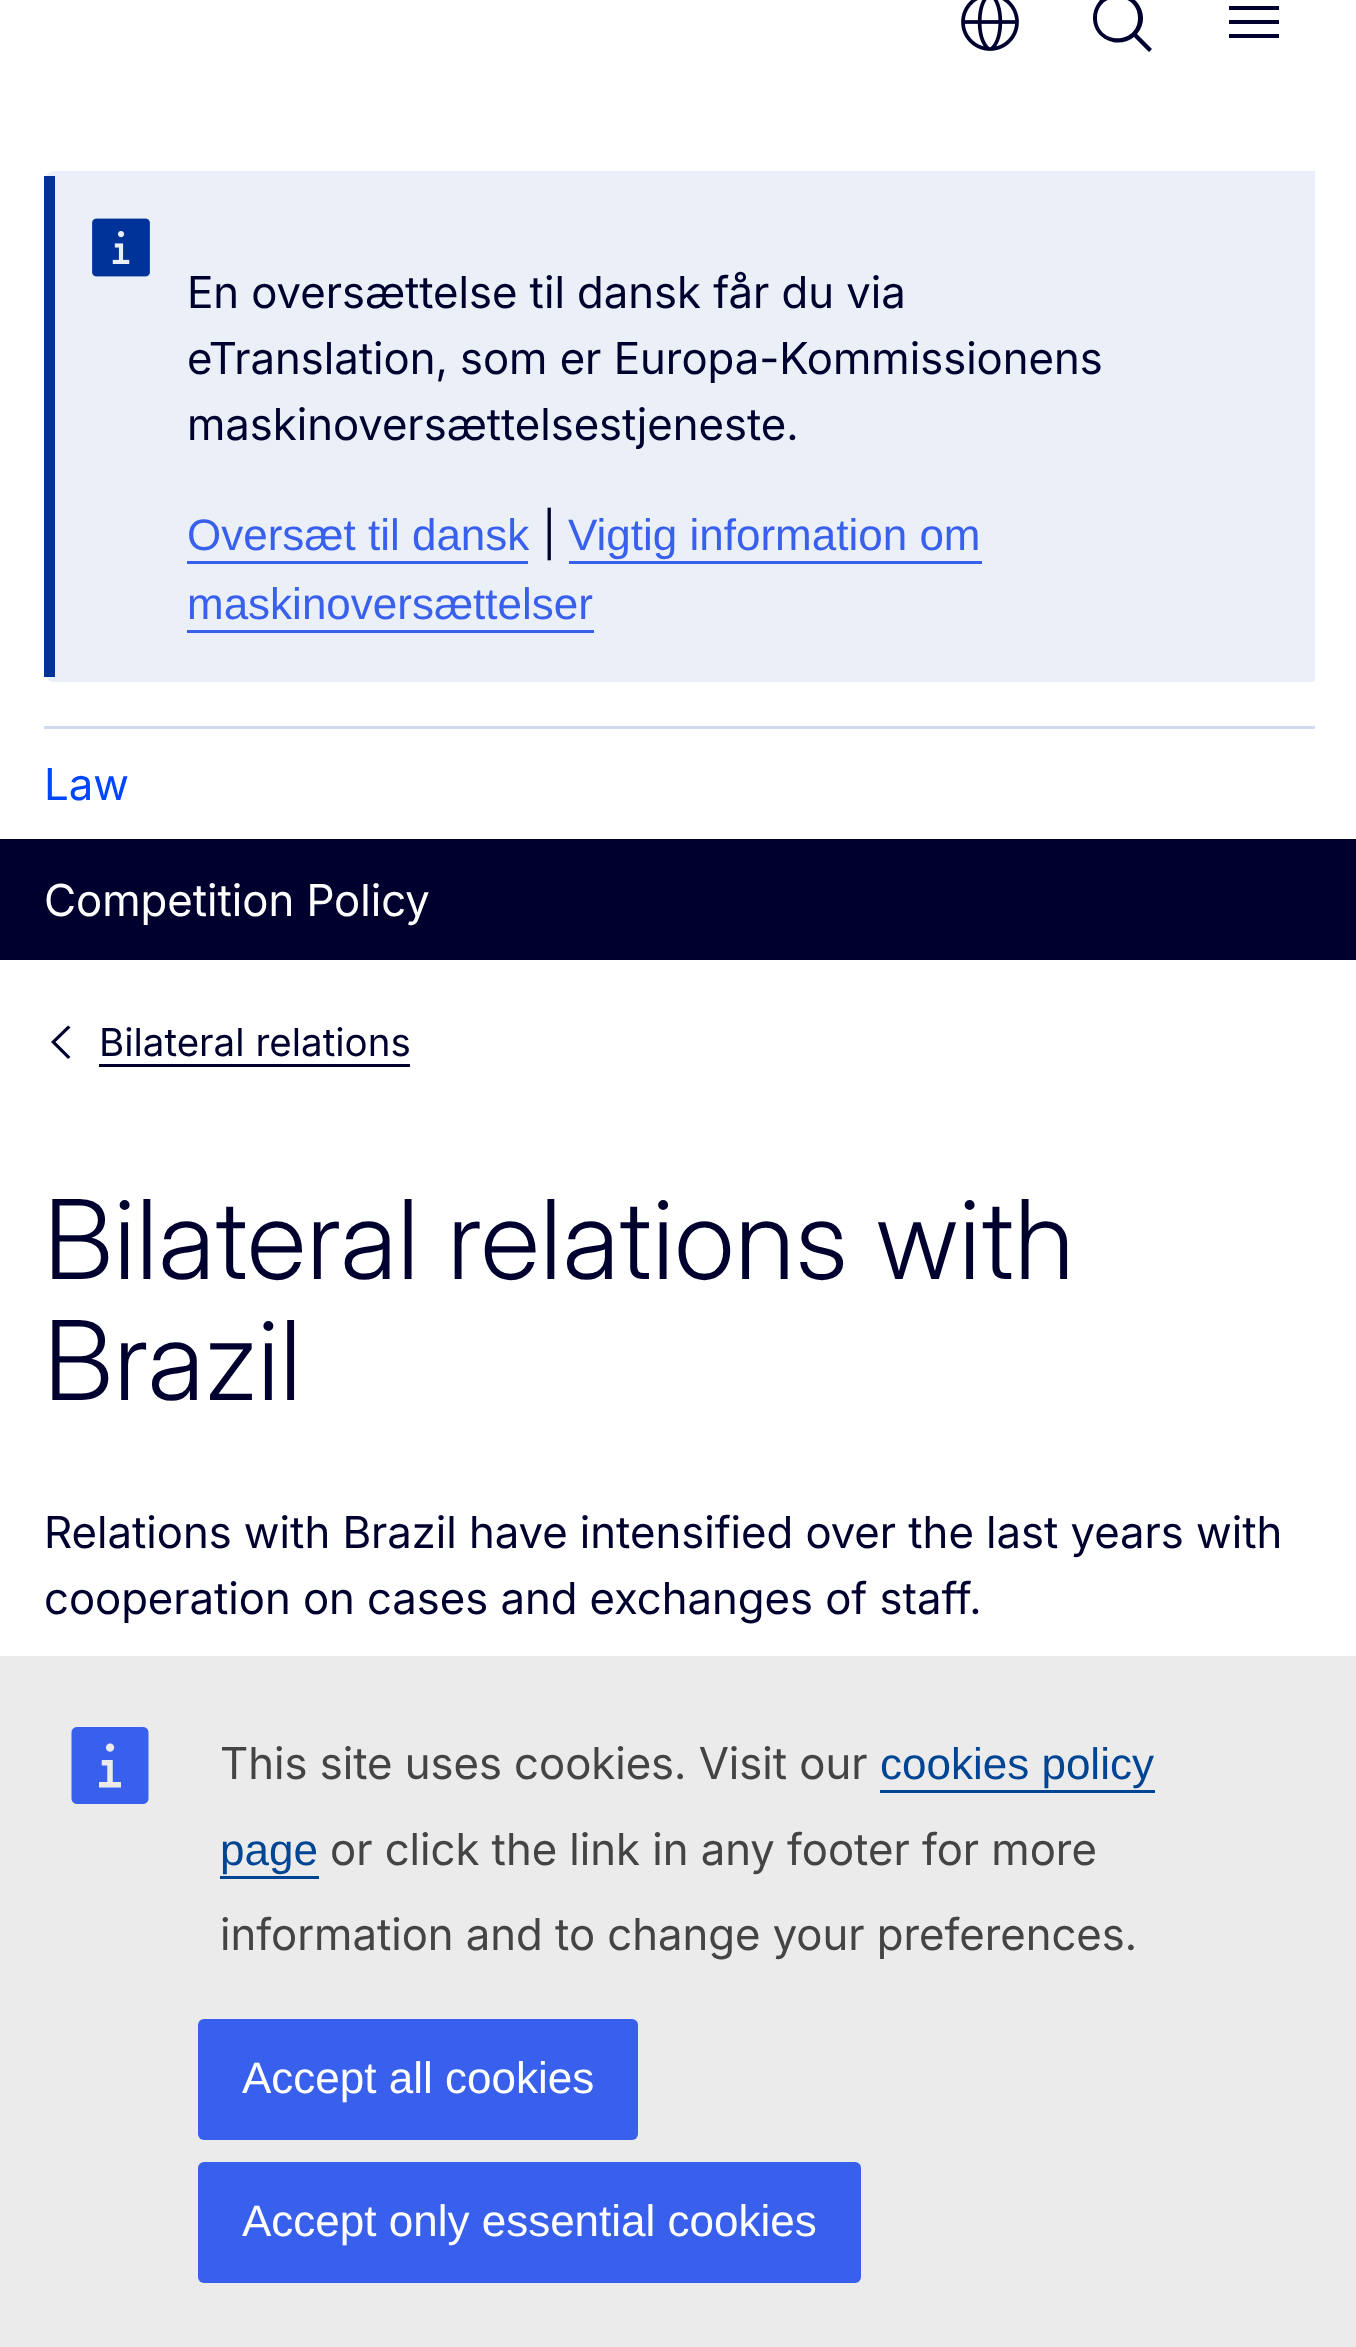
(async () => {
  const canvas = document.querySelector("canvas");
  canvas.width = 1356;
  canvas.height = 2347;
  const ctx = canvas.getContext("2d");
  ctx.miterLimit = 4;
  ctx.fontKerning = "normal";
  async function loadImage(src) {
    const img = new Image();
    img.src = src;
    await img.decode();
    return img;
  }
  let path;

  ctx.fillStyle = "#ffffff";
  ctx.fillRect(0, 0, 1356, 2347);
  ctx.drawImage(await loadImage("img/1.png"), 961, 0, 58, 51);
  ctx.fillStyle = "#00002e";
  path = new Path2D("M1093 18C1093 11 1096 5 1100 0C1123-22 1157 10 1137 34L1152 49L1149 52L1134 37C1118 50 1093 39 1093 18M1138 18C1138-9 1097-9 1097 18C1097 45 1138 45 1138 18");
  ctx.fill(path, "evenodd");
  path = new Path2D("M1279 6H1229V10H1279ZM1279 34H1229V38H1279ZM1229 20H1279V24H1229Z");
  ctx.fill(path, "evenodd");
  ctx.fillStyle = "#ebeff7";
  ctx.beginPath();
  ctx.roundRect(44, 171, 1271, 511, [11, 0, 0, 11]);
  ctx.fill();
  ctx.fillStyle = "#003399";
  ctx.fillRect(44, 176, 11, 501);
  ctx.drawImage(await loadImage("img/2.png"), 92, 218, 58, 59);
  for (const [x, y, w, h, color] of [
    [187, 561, 341, 3, "#3860ed"],
    [569, 561, 413, 3, "#3860ed"],
    [187, 630, 407, 3, "#3860ed"],
    [44, 726, 1271, 3, "#d1d9f1"],
    [0, 839, 1356, 121, "#00002e"],
  ]) {
    ctx.fillStyle = color;
    ctx.fillRect(x, y, w, h);
  }
  path = new Path2D("M68 1025.5L70.5 1027.5L55.5 1042L70.5 1057L68 1059L51 1042Z");
  ctx.fill(path);
  ctx.fillRect(99, 1064, 311, 3);
  ctx.fillStyle = "#ebebeb";
  ctx.fillRect(0, 1656, 1356, 691);
  ctx.drawImage(await loadImage("img/3.png"), 71, 1727, 78, 77);
  ctx.fillStyle = "#004494";
  ctx.fillRect(880, 1790, 275, 3);
  ctx.fillRect(220, 1876, 99, 3);
  ctx.fillStyle = "#3860ed";
  ctx.beginPath();
  ctx.roundRect(198, 2019, 440, 121, 6);
  ctx.fill();
  ctx.beginPath();
  ctx.roundRect(198, 2162, 663, 121, 6);
  ctx.fill();
  ctx.font = "44px 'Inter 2'";
  ctx.fillStyle = "#00002e";
  for (const [text, x, y] of [
    ["En oversættelse til dansk får du via", 187, 308],
    ["eTranslation, som er Europa-Kommissionens", 187, 374],
    ["maskinoversættelsestjeneste.", 187, 440],
  ]) {
    ctx.fillText(text, x, y);
  }
  ctx.font = "44px Liberation Sans";
  ctx.fillStyle = "#3860ed";
  ctx.fillText("Oversæt til dansk", 187, 550);
  ctx.font = "44px 'Inter 2'";
  ctx.fillStyle = "#00002e";
  ctx.fillText("|", 542, 550);
  ctx.font = "44px Liberation Sans";
  ctx.fillStyle = "#3860ed";
  ctx.fillText("Vigtig information om", 568, 550);
  ctx.fillText("maskinoversættelser", 187, 619);
  ctx.font = "44px 'Inter 2'";
  ctx.fillStyle = "#0046ff";
  ctx.fillText("Law", 44, 800);
  ctx.fillStyle = "#ffffff";
  ctx.fillText("Competition Policy", 44, 916);
  ctx.font = "38.5px Inter";
  ctx.fillStyle = "#00002e";
  ctx.fillText("Bilateral relations", 99, 1056);
  ctx.letterSpacing = "1.4px";
  ctx.font = "300 110px Inter";
  ctx.fillText("Bilateral relations with", 44, 1279);
  ctx.fillText("Brazil", 44, 1400);
  ctx.letterSpacing = "0px";
  ctx.font = "44px 'Inter 2'";
  ctx.fillText("Relations with Brazil have intensified over the last years with", 44, 1548);
  ctx.fillText("cooperation on cases and exchanges of staff.", 44, 1614);
  ctx.fillStyle = "#444444";
  ctx.fillText("This site uses cookies. Visit our", 220, 1779);
  ctx.font = "44px Liberation Sans";
  ctx.fillStyle = "#004494";
  ctx.fillText("cookies policy", 880, 1779);
  ctx.fillText("page", 220, 1865);
  ctx.font = "44px 'Inter 2'";
  ctx.fillStyle = "#444444";
  ctx.fillText("or click the link in any footer for more", 330, 1865);
  ctx.fillText("information and to change your preferences.", 220, 1950);
  ctx.font = "44px Liberation Sans";
  ctx.fillStyle = "#ffffff";
  ctx.fillText("Accept all cookies", 242, 2093);
  ctx.fillText("Accept only essential cookies", 242, 2236);
})();
